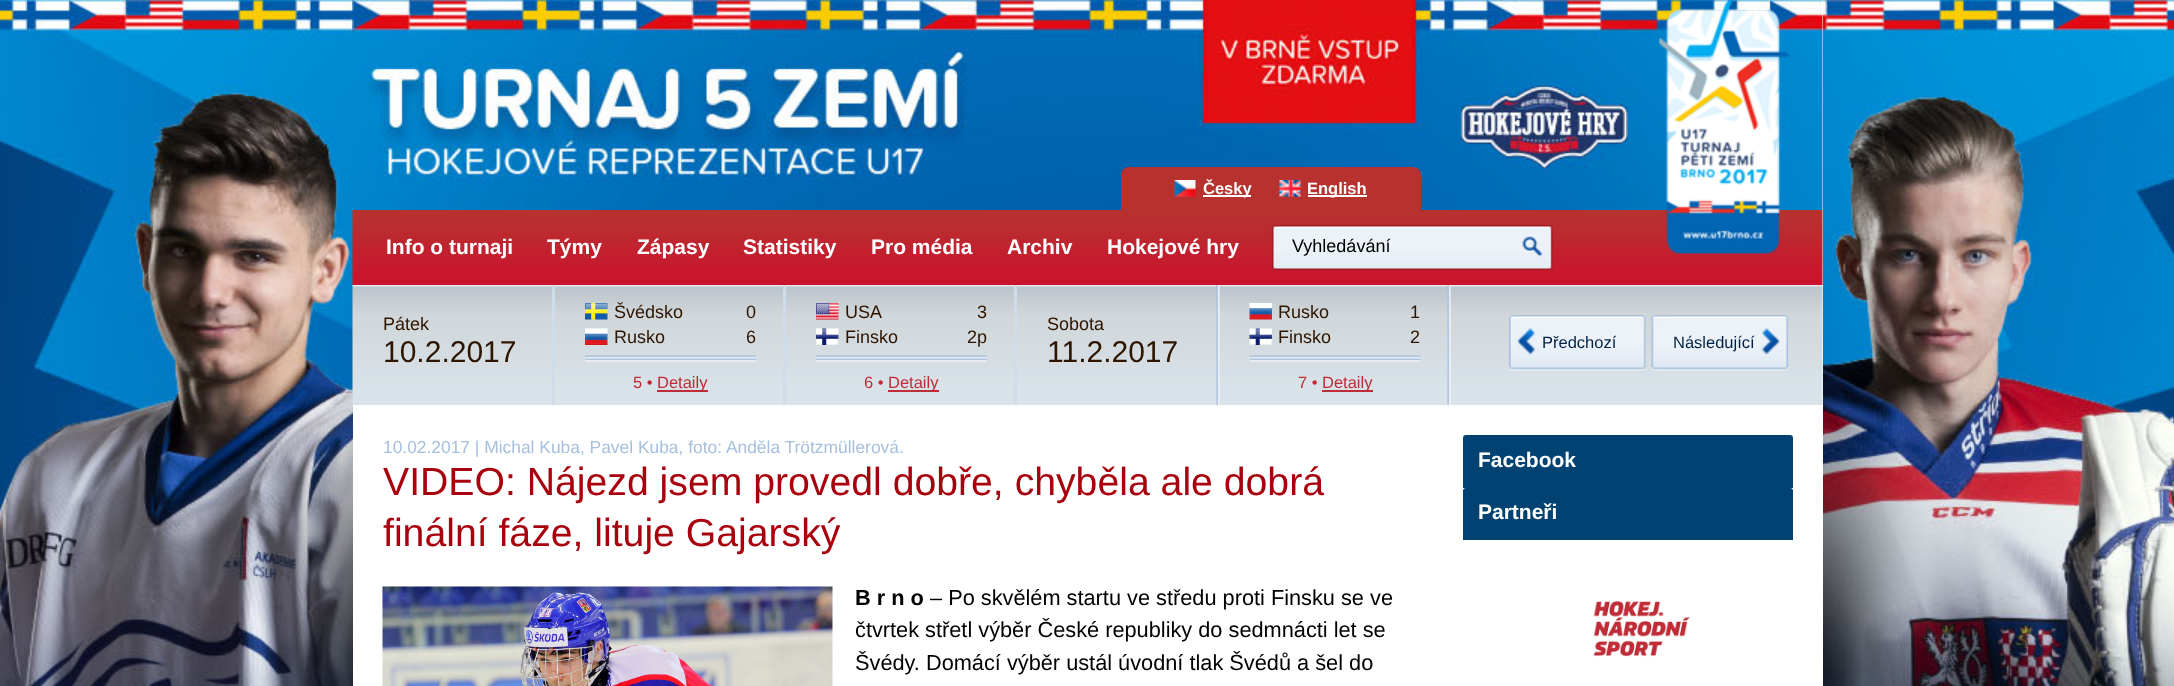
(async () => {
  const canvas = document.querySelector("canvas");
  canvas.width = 2174;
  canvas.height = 686;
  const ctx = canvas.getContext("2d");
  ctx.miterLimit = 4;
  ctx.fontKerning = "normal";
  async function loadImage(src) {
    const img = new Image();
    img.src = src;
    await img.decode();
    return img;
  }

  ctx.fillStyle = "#ffffff";
  ctx.fillRect(0, 0, 2174, 686);
  ctx.drawImage(await loadImage("img/1.png"), 0, 0, 2174, 686);
  ctx.fillRect(353, 0, 1470, 686);
  ctx.drawImage(await loadImage("img/2.png"), 352, 0, 1471, 210);
  ctx.fillStyle = "#b7322f";
  ctx.beginPath();
  ctx.roundRect(1121, 167, 300, 43, [8, 8, 0, 0]);
  ctx.fill();
  ctx.drawImage(await loadImage("img/3.png"), 1174, 180, 22, 17);
  ctx.fillStyle = "#ffffff";
  ctx.fillRect(1203, 195, 48, 2);
  ctx.drawImage(await loadImage("img/4.png"), 1279, 180, 22, 17);
  ctx.fillRect(1308, 195, 59, 2);
  ctx.drawImage(await loadImage("img/6.png"), 352, 210, 1471, 75);
  ctx.drawImage(await loadImage("img/5.png"), 1659, 0, 131, 254);
  ctx.drawImage(await loadImage("img/7.png"), 352, 285, 1471, 120);
  ctx.fillStyle = "#d1dceb";
  ctx.fillRect(552, 285, 3, 120);
  ctx.fillRect(783, 285, 3, 120);
  ctx.drawImage(await loadImage("img/8.png"), 585, 303, 23, 17);
  ctx.drawImage(await loadImage("img/9.png"), 585, 328, 23, 17);
  ctx.drawImage(await loadImage("img/10.png"), 585, 355, 171, 7);
  ctx.fillStyle = "#bd2c37";
  ctx.fillRect(657, 390, 51, 2);
  ctx.fillStyle = "#d1dceb";
  ctx.fillRect(1014, 285, 3, 120);
  ctx.drawImage(await loadImage("img/11.png"), 816, 303, 23, 17);
  ctx.drawImage(await loadImage("img/12.png"), 816, 328, 23, 17);
  ctx.drawImage(await loadImage("img/10.png"), 816, 355, 171, 7);
  ctx.fillStyle = "#bd2c37";
  ctx.fillRect(888, 390, 51, 2);
  ctx.drawImage(await loadImage("img/13.png"), 1216, 285, 4, 120);
  ctx.drawImage(await loadImage("img/13.png"), 1447, 285, 4, 120);
  ctx.drawImage(await loadImage("img/14.png"), 1249, 303, 23, 17);
  ctx.drawImage(await loadImage("img/15.png"), 1249, 328, 23, 17);
  ctx.drawImage(await loadImage("img/16.png"), 1249, 355, 172, 7);
  ctx.fillRect(1322, 390, 51, 2);
  ctx.drawImage(await loadImage("img/17.png"), 1509, 315, 137, 56);
  ctx.drawImage(await loadImage("img/18.png"), 1651, 315, 137, 56);
  ctx.drawImage(await loadImage("img/19.png"), 382, 586, 451, 100);
  ctx.fillStyle = "#004372";
  ctx.beginPath();
  ctx.roundRect(1463, 435, 330, 53, [3, 3, 0, 0]);
  ctx.fill();
  ctx.beginPath();
  ctx.roundRect(1463, 488, 330, 52, [3, 3, 0, 0]);
  ctx.fill();
  ctx.drawImage(await loadImage("img/20.png"), 1509, 591, 247, 81);
  ctx.drawImage(await loadImage("img/22.png"), 1509, 604, 247, 51);
  ctx.drawImage(await loadImage("img/21.png"), 1544, 601, 186, 56);
  ctx.font = "bold 16.5px Liberation Sans";
  ctx.fillStyle = "#ffffff";
  ctx.fillText("Česky", 1203, 194);
  ctx.fillText("English", 1307, 194);
  ctx.font = "bold 21px Liberation Sans";
  for (const [text, x, y] of [
    ["Info o turnaji", 386, 254],
    ["Týmy", 547, 254],
    ["Zápasy", 637, 254],
    ["Statistiky", 743, 254],
    ["Pro média", 871, 254],
    ["Archiv", 1007, 254],
    ["Hokejové hry", 1107, 254],
  ]) {
    ctx.fillText(text, x, y);
  }
  ctx.font = "18px Liberation Sans";
  ctx.fillStyle = "#000000";
  ctx.fillText("Vyhledávání", 1292, 252);
  ctx.fillStyle = "#2e1500";
  ctx.fillText("Pátek", 383, 330);
  ctx.font = "30px Liberation Sans";
  ctx.fillText("10.2.2017", 383, 362);
  ctx.font = "18px Liberation Sans";
  for (const [text, x, y] of [
    ["Švédsko", 614, 318],
    ["0", 746, 318],
    ["Rusko", 614, 343],
    ["6", 746, 343],
  ]) {
    ctx.fillText(text, x, y);
  }
  ctx.font = "16.5px Liberation Sans";
  ctx.fillStyle = "#bd2c37";
  ctx.fillText("5 •", 633, 388);
  ctx.fillText("Detaily", 657, 388);
  ctx.font = "18px Liberation Sans";
  ctx.fillStyle = "#2e1500";
  for (const [text, x, y] of [
    ["USA", 845, 318],
    ["3", 977, 318],
    ["Finsko", 845, 343],
    ["2p", 967, 343],
  ]) {
    ctx.fillText(text, x, y);
  }
  ctx.font = "16.5px Liberation Sans";
  ctx.fillStyle = "#bd2c37";
  ctx.fillText("6 •", 864, 388);
  ctx.fillText("Detaily", 888, 388);
  ctx.font = "18px Liberation Sans";
  ctx.fillStyle = "#2e1500";
  ctx.fillText("Sobota", 1047, 330);
  ctx.font = "30px Liberation Sans";
  ctx.fillText("11.2.2017", 1047, 362);
  ctx.font = "18px Liberation Sans";
  for (const [text, x, y] of [
    ["Rusko", 1278, 318],
    ["1", 1410, 318],
    ["Finsko", 1278, 343],
    ["2", 1410, 343],
  ]) {
    ctx.fillText(text, x, y);
  }
  ctx.font = "16.5px Liberation Sans";
  ctx.fillStyle = "#bd2c37";
  ctx.fillText("7 •", 1298, 388);
  ctx.fillText("Detaily", 1322, 388);
  ctx.fillStyle = "#012044";
  ctx.fillText("Předchozí", 1542, 348);
  ctx.fillText("Následující", 1673, 348);
  ctx.font = "17.4px Liberation Sans";
  ctx.fillStyle = "#a5bfdd";
  ctx.fillText("10.02.2017 | Michal Kuba, Pavel Kuba, foto: Anděla Trötzmüllerová.", 383, 453);
  ctx.font = "39.2px Liberation Sans";
  ctx.fillStyle = "#a8000d";
  ctx.fillText("VIDEO: Nájezd jsem provedl dobře, chyběla ale dobrá", 383, 495);
  ctx.fillText("finální fáze, lituje Gajarský", 383, 546);
  ctx.font = "bold 21.75px Liberation Sans";
  ctx.fillStyle = "#000000";
  ctx.fillText("B r n o", 855, 605);
  ctx.font = "21.75px Liberation Sans";
  for (const [text, x, y] of [
    ["– Po skvělém startu ve středu proti Finsku se ve", 930, 605],
    ["čtvrtek střetl výběr České republiky do sedmnácti let se", 855, 637],
    ["Švédy. Domácí výběr ustál úvodní tlak Švédů a šel do", 855, 670],
  ]) {
    ctx.fillText(text, x, y);
  }
  ctx.font = "bold 21px Liberation Sans";
  ctx.fillStyle = "#ffffff";
  ctx.fillText("Facebook", 1478, 467);
  ctx.fillText("Partneři", 1478, 519);
})();
